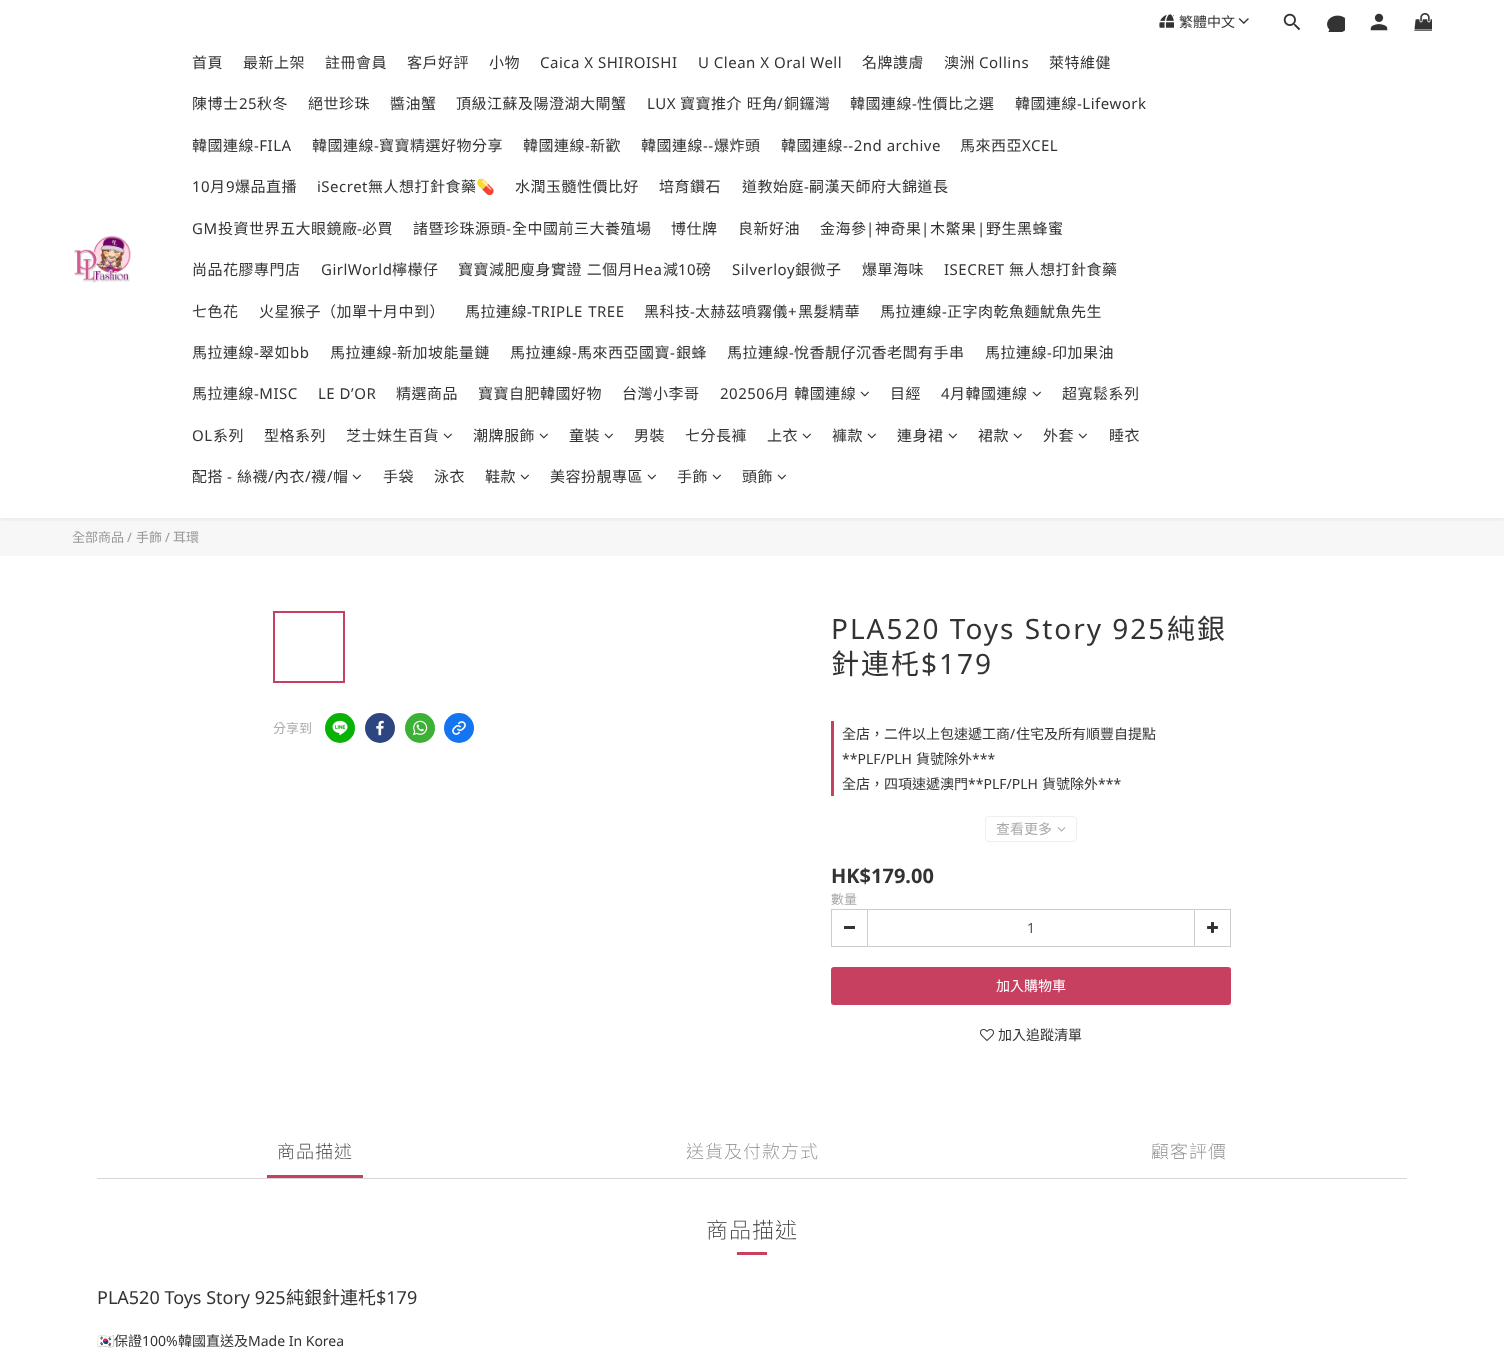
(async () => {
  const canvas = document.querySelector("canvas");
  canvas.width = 1504;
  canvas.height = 1353;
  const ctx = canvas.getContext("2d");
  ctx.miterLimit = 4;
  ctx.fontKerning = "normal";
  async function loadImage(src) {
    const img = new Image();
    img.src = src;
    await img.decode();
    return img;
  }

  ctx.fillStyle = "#ffffff";
  ctx.fillRect(0, 0, 1504, 1353);
  ctx.fillStyle = "#f7f7f7";
  ctx.fillRect(0, 518, 1504, 38);
  ctx.save();
  ctx.beginPath();
  ctx.rect(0, 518, 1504, 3);
  ctx.clip();
  ctx.fillStyle = "rgba(0, 0, 0, 0.06)";
  ctx.filter = "blur(3px)";
  ctx.beginPath();
  ctx.rect(0, 2, 1504, 518);
  ctx.fill();
  ctx.filter = "none";
  ctx.restore();
  ctx.drawImage(await loadImage("img/1.png"), 1159, 14, 15, 14);
  ctx.drawImage(await loadImage("img/2.png"), 1238, 18, 11, 6);
  ctx.drawImage(await loadImage("img/3.png"), 1283, 13, 18, 18);
  ctx.drawImage(await loadImage("img/4.png"), 1327, 15, 18, 17);
  ctx.drawImage(await loadImage("img/5.png"), 1370, 13, 18, 18);
  ctx.drawImage(await loadImage("img/6.png"), 1414, 13, 18, 18);
  ctx.drawImage(await loadImage("img/7.png"), 74, 235, 57, 48);
  ctx.drawImage(await loadImage("img/8.png"), 860, 391, 9, 6);
  ctx.drawImage(await loadImage("img/8.png"), 1032, 391, 9, 6);
  ctx.drawImage(await loadImage("img/8.png"), 443, 433, 9, 6);
  ctx.drawImage(await loadImage("img/8.png"), 539, 433, 9, 6);
  ctx.drawImage(await loadImage("img/8.png"), 604, 433, 9, 6);
  ctx.drawImage(await loadImage("img/8.png"), 802, 433, 9, 6);
  ctx.drawImage(await loadImage("img/8.png"), 867, 433, 9, 6);
  ctx.drawImage(await loadImage("img/8.png"), 948, 433, 9, 6);
  ctx.drawImage(await loadImage("img/8.png"), 1013, 433, 9, 6);
  ctx.drawImage(await loadImage("img/8.png"), 1078, 433, 9, 6);
  ctx.drawImage(await loadImage("img/8.png"), 352, 474, 9, 6);
  ctx.drawImage(await loadImage("img/8.png"), 520, 474, 9, 6);
  ctx.drawImage(await loadImage("img/8.png"), 647, 474, 9, 6);
  ctx.drawImage(await loadImage("img/8.png"), 712, 474, 9, 6);
  ctx.drawImage(await loadImage("img/8.png"), 777, 474, 9, 6);
  ctx.strokeStyle = "#c74060";
  ctx.lineWidth = 2;
  ctx.strokeRect(274, 612, 70, 70);
  ctx.fillStyle = "#09b305";
  ctx.beginPath();
  ctx.arc(340, 728, 15, 0, Math.PI * 2);
  ctx.fill();
  ctx.drawImage(await loadImage("img/9.png"), 332, 720, 16, 16);
  ctx.fillStyle = "#2d4682";
  ctx.beginPath();
  ctx.arc(380, 728, 15, 0, Math.PI * 2);
  ctx.fill();
  ctx.drawImage(await loadImage("img/10.png"), 376, 720, 8, 16);
  ctx.fillStyle = "#3cb136";
  ctx.beginPath();
  ctx.arc(420, 728, 15, 0, Math.PI * 2);
  ctx.fill();
  ctx.drawImage(await loadImage("img/11.png"), 412, 720, 16, 16);
  ctx.fillStyle = "#1575f0";
  ctx.beginPath();
  ctx.arc(459, 728, 15, 0, Math.PI * 2);
  ctx.fill();
  ctx.drawImage(await loadImage("img/12.png"), 452, 721, 14, 14);
  ctx.fillStyle = "#c74060";
  ctx.fillRect(831, 721, 3, 75);
  ctx.beginPath();
  ctx.roundRect(985.5, 816.5, 91, 25, 3.5);
  ctx.strokeStyle = "#eeeeee";
  ctx.lineWidth = 1;
  ctx.stroke();
  ctx.drawImage(await loadImage("img/13.png"), 1057, 827, 9, 5);
  ctx.fillStyle = "#cccccc";
  ctx.fillRect(867, 909, 328, 1);
  ctx.fillRect(867, 946, 328, 1);
  ctx.strokeStyle = "#cccccc";
  ctx.strokeRect(831.5, 909.5, 36, 37);
  ctx.fillStyle = "#333333";
  ctx.fillRect(844, 926, 11, 3);
  ctx.strokeRect(1194.5, 909.5, 36, 37);
  ctx.drawImage(await loadImage("img/14.png"), 1207, 922, 11, 11);
  ctx.fillStyle = "#c74060";
  ctx.beginPath();
  ctx.roundRect(831, 967, 400, 38, 3);
  ctx.fill();
  ctx.drawImage(await loadImage("img/15.png"), 980, 1029, 14, 12);
  for (const [x, y, w, h, color] of [
    [97, 1178, 1310, 1, "#d6d6d6"],
    [267, 1175, 96, 3, "#c74060"],
    [737, 1252, 30, 3, "#c74060"],
  ]) {
    ctx.fillStyle = color;
    ctx.fillRect(x, y, w, h);
  }
  ctx.font = "14px Noto Sans TC";
  ctx.fillStyle = "#333333";
  ctx.fillText("繁體中文", 1179, 27);
  ctx.letterSpacing = "0.5px";
  ctx.font = "15px Noto Sans TC";
  for (const [text, x, y] of [
    ["首頁", 192, 68],
    ["最新上架", 243, 68],
    ["註冊會員", 325, 68],
    ["客戶好評", 407, 68],
    ["小物", 489, 68],
  ]) {
    ctx.fillText(text, x, y);
  }
  ctx.font = "15px Noto Sans";
  ctx.fillText("Caica X SHIROISHI", 540, 68);
  ctx.fillText("U Clean X Oral Well", 698, 68);
  ctx.font = "15px Noto Sans TC";
  ctx.fillText("名牌謢膚", 862, 68);
  ctx.fillText("澳洲", 944, 68);
  ctx.font = "15px Noto Sans";
  ctx.fillText("Collins", 979, 68);
  ctx.font = "15px Noto Sans TC";
  ctx.fillText("萊特維健", 1049, 68);
  ctx.fillText("陳博士", 192, 109);
  ctx.font = "15px Noto Sans";
  ctx.fillText("25", 239, 109);
  ctx.font = "15px Noto Sans TC";
  for (const [text, x, y] of [
    ["秋冬", 257, 109],
    ["絕世珍珠", 308, 109],
    ["醬油蟹", 390, 109],
    ["頂級江蘇及陽澄湖大閘蟹", 456, 109],
  ]) {
    ctx.fillText(text, x, y);
  }
  ctx.font = "15px Noto Sans";
  ctx.fillText("LUX", 647, 109);
  ctx.wordSpacing = "1px";
  ctx.font = "15px Noto Sans TC";
  ctx.fillText("寶寶推介 旺角", 680, 109);
  ctx.wordSpacing = "0px";
  ctx.font = "15px Noto Sans";
  ctx.fillText("/", 777, 109);
  ctx.font = "15px Noto Sans TC";
  ctx.fillText("銅鑼灣", 784, 109);
  ctx.fillText("韓國連線", 850, 109);
  ctx.font = "15px Noto Sans";
  ctx.fillText("-", 912, 109);
  ctx.font = "15px Noto Sans TC";
  ctx.fillText("性價比之選", 917, 109);
  ctx.fillText("韓國連線", 1015, 109);
  ctx.font = "15px Noto Sans";
  ctx.fillText("-Lifework", 1077, 109);
  ctx.font = "15px Noto Sans TC";
  ctx.fillText("韓國連線", 192, 151);
  ctx.font = "15px Noto Sans";
  ctx.fillText("-FILA", 254, 151);
  ctx.font = "15px Noto Sans TC";
  ctx.fillText("韓國連線", 312, 151);
  ctx.font = "15px Noto Sans";
  ctx.fillText("-", 374, 151);
  ctx.font = "15px Noto Sans TC";
  ctx.fillText("寶寶精選好物分享", 379, 151);
  ctx.fillText("韓國連線", 523, 151);
  ctx.font = "15px Noto Sans";
  ctx.fillText("-", 585, 151);
  ctx.font = "15px Noto Sans TC";
  ctx.fillText("新歡", 590, 151);
  ctx.fillText("韓國連線", 641, 151);
  ctx.font = "15px Noto Sans";
  ctx.fillText("--", 703, 151);
  ctx.font = "15px Noto Sans TC";
  ctx.fillText("爆炸頭", 714, 151);
  ctx.fillText("韓國連線", 781, 151);
  ctx.font = "15px Noto Sans";
  ctx.fillText("--2nd archive", 843, 151);
  ctx.font = "15px Noto Sans TC";
  ctx.fillText("馬來西亞", 960, 151);
  ctx.font = "15px Noto Sans";
  ctx.fillText("XCEL", 1022, 151);
  ctx.fillText("10", 192, 192);
  ctx.font = "15px Noto Sans TC";
  ctx.fillText("月", 210, 192);
  ctx.font = "15px Noto Sans";
  ctx.fillText("9", 226, 192);
  ctx.font = "15px Noto Sans TC";
  ctx.fillText("爆品直播", 235, 192);
  ctx.font = "15px Noto Sans";
  ctx.fillText("iSecret", 317, 192);
  ctx.font = "15px Noto Sans TC";
  ctx.fillText("無人想打針食藥", 368, 192);
  ctx.font = "15px Noto Color Emoji";
  ctx.fillText("💊", 476, 192);
  ctx.font = "15px Noto Sans TC";
  for (const [text, x, y] of [
    ["水潤玉髓性價比好", 515, 192],
    ["培育鑽石", 659, 192],
    ["道教始庭", 742, 192],
  ]) {
    ctx.fillText(text, x, y);
  }
  ctx.font = "15px Noto Sans";
  ctx.fillText("-", 804, 192);
  ctx.font = "15px Noto Sans TC";
  ctx.fillText("嗣漢天師府大錦道長", 809, 192);
  ctx.font = "15px Noto Sans";
  ctx.fillText("GM", 192, 234);
  ctx.font = "15px Noto Sans TC";
  ctx.fillText("投資世界五大眼鏡廠", 218, 234);
  ctx.font = "15px Noto Sans";
  ctx.fillText("-", 357, 234);
  ctx.font = "15px Noto Sans TC";
  ctx.fillText("必買", 362, 234);
  ctx.fillText("諸暨珍珠源頭", 413, 234);
  ctx.font = "15px Noto Sans";
  ctx.fillText("-", 506, 234);
  ctx.font = "15px Noto Sans TC";
  for (const [text, x, y] of [
    ["全中國前三大養殖場", 512, 234],
    ["博仕牌", 671, 234],
    ["良新好油", 738, 234],
    ["金海參", 820, 234],
  ]) {
    ctx.fillText(text, x, y);
  }
  ctx.font = "15px Noto Sans";
  ctx.fillText("|", 866, 234);
  ctx.font = "15px Noto Sans TC";
  ctx.fillText("神奇果", 875, 234);
  ctx.font = "15px Noto Sans";
  ctx.fillText("|", 921, 234);
  ctx.font = "15px Noto Sans TC";
  ctx.fillText("木鱉果", 930, 234);
  ctx.font = "15px Noto Sans";
  ctx.fillText("|", 977, 234);
  ctx.font = "15px Noto Sans TC";
  ctx.fillText("野生黑蜂蜜", 986, 234);
  ctx.fillText("尚品花膠專門店", 192, 275);
  ctx.font = "15px Noto Sans";
  ctx.fillText("GirlWorld", 321, 275);
  ctx.font = "15px Noto Sans TC";
  ctx.fillText("檸檬仔", 392, 275);
  ctx.wordSpacing = "1px";
  ctx.fillText("寶寶減肥廋身實證 二個月", 458, 275);
  ctx.wordSpacing = "0px";
  ctx.font = "15px Noto Sans";
  ctx.fillText("Hea", 633, 275);
  ctx.font = "15px Noto Sans TC";
  ctx.fillText("減", 663, 275);
  ctx.font = "15px Noto Sans";
  ctx.fillText("10", 678, 275);
  ctx.font = "15px Noto Sans TC";
  ctx.fillText("磅", 696, 275);
  ctx.font = "15px Noto Sans";
  ctx.fillText("Silverloy", 732, 275);
  ctx.font = "15px Noto Sans TC";
  ctx.fillText("銀微子", 795, 275);
  ctx.fillText("爆單海味", 862, 275);
  ctx.font = "15px Noto Sans";
  ctx.fillText("ISECRET", 944, 275);
  ctx.font = "15px Noto Sans TC";
  for (const [text, x, y] of [
    ["無人想打針食藥", 1009, 275],
    ["七色花", 192, 317],
    ["火星猴子（加單十月中到）", 259, 317],
    ["馬拉連線", 465, 317],
  ]) {
    ctx.fillText(text, x, y);
  }
  ctx.wordSpacing = "1px";
  ctx.font = "15px Noto Sans";
  ctx.fillText("-TRIPLE TREE", 527, 317);
  ctx.wordSpacing = "0px";
  ctx.font = "15px Noto Sans TC";
  ctx.fillText("黑科技", 644, 317);
  ctx.font = "15px Noto Sans";
  ctx.fillText("-", 690, 317);
  ctx.font = "15px Noto Sans TC";
  ctx.fillText("太赫茲噴霧儀", 695, 317);
  ctx.font = "15px Noto Sans";
  ctx.fillText("+", 788, 317);
  ctx.font = "15px Noto Sans TC";
  ctx.fillText("黑髮精華", 798, 317);
  ctx.fillText("馬拉連線", 880, 317);
  ctx.font = "15px Noto Sans";
  ctx.fillText("-", 942, 317);
  ctx.font = "15px Noto Sans TC";
  ctx.fillText("正字肉乾魚麵魷魚先生", 947, 317);
  ctx.fillText("馬拉連線", 192, 358);
  ctx.font = "15px Noto Sans";
  ctx.fillText("-", 254, 358);
  ctx.font = "15px Noto Sans TC";
  ctx.fillText("翠如", 259, 358);
  ctx.font = "15px Noto Sans";
  ctx.fillText("bb", 290, 358);
  ctx.font = "15px Noto Sans TC";
  ctx.fillText("馬拉連線", 330, 358);
  ctx.font = "15px Noto Sans";
  ctx.fillText("-", 392, 358);
  ctx.font = "15px Noto Sans TC";
  ctx.fillText("新加坡能量鏈", 397, 358);
  ctx.fillText("馬拉連線", 510, 358);
  ctx.font = "15px Noto Sans";
  ctx.fillText("-", 572, 358);
  ctx.font = "15px Noto Sans TC";
  ctx.fillText("馬來西亞國寶", 577, 358);
  ctx.font = "15px Noto Sans";
  ctx.fillText("-", 670, 358);
  ctx.font = "15px Noto Sans TC";
  ctx.fillText("銀蜂", 676, 358);
  ctx.fillText("馬拉連線", 727, 358);
  ctx.font = "15px Noto Sans";
  ctx.fillText("-", 789, 358);
  ctx.font = "15px Noto Sans TC";
  ctx.fillText("悅香靚仔沉香老闆有手串", 794, 358);
  ctx.fillText("馬拉連線", 985, 358);
  ctx.font = "15px Noto Sans";
  ctx.fillText("-", 1047, 358);
  ctx.font = "15px Noto Sans TC";
  ctx.fillText("印加果油", 1052, 358);
  ctx.fillText("馬拉連線", 192, 399);
  ctx.font = "15px Noto Sans";
  ctx.fillText("-MISC", 254, 399);
  ctx.fillText("LE D’OR", 318, 399);
  ctx.font = "15px Noto Sans TC";
  for (const [text, x, y] of [
    ["精選商品", 396, 399],
    ["寶寶自肥韓國好物", 478, 399],
    ["台灣小李哥", 622, 399],
  ]) {
    ctx.fillText(text, x, y);
  }
  ctx.font = "15px Noto Sans";
  ctx.fillText("202506", 720, 399);
  ctx.wordSpacing = "1px";
  ctx.font = "15px Noto Sans TC";
  ctx.fillText("月 韓國連線", 774, 399);
  ctx.wordSpacing = "0px";
  ctx.fillText("目經", 890, 399);
  ctx.font = "15px Noto Sans";
  ctx.fillText("4", 941, 399);
  ctx.font = "15px Noto Sans TC";
  ctx.fillText("月韓國連線", 950, 399);
  ctx.fillText("超寬鬆系列", 1062, 399);
  ctx.font = "15px Noto Sans";
  ctx.fillText("OL", 192, 441);
  ctx.font = "15px Noto Sans TC";
  for (const [text, x, y] of [
    ["系列", 213, 441],
    ["型格系列", 264, 441],
    ["芝士妹生百貨", 346, 441],
    ["潮牌服飾", 473, 441],
    ["童裝", 569, 441],
    ["男裝", 634, 441],
    ["七分長褲", 685, 441],
    ["上衣", 767, 441],
    ["褲款", 832, 441],
    ["連身裙", 897, 441],
    ["裙款", 978, 441],
    ["外套", 1043, 441],
    ["睡衣", 1109, 441],
    ["配搭", 192, 482],
  ]) {
    ctx.fillText(text, x, y);
  }
  ctx.font = "15px Noto Sans";
  ctx.fillText("-", 227, 482);
  ctx.font = "15px Noto Sans TC";
  ctx.fillText("絲襪", 237, 482);
  ctx.font = "15px Noto Sans";
  ctx.fillText("/", 268, 482);
  ctx.font = "15px Noto Sans TC";
  ctx.fillText("內衣", 274, 482);
  ctx.font = "15px Noto Sans";
  ctx.fillText("/", 305, 482);
  ctx.font = "15px Noto Sans TC";
  ctx.fillText("襪", 311, 482);
  ctx.font = "15px Noto Sans";
  ctx.fillText("/", 327, 482);
  ctx.font = "15px Noto Sans TC";
  for (const [text, x, y] of [
    ["帽", 333, 482],
    ["手袋", 383, 482],
    ["泳衣", 434, 482],
    ["鞋款", 485, 482],
    ["美容扮靚專區", 550, 482],
    ["手飾", 677, 482],
    ["頭飾", 742, 482],
  ]) {
    ctx.fillText(text, x, y);
  }
  ctx.letterSpacing = "0px";
  ctx.font = "13px Noto Sans TC";
  ctx.fillStyle = "#999999";
  ctx.fillText("全部商品", 72, 542);
  ctx.font = "13px Noto Sans";
  ctx.fillText("/", 127, 542);
  ctx.font = "13px Noto Sans TC";
  ctx.fillText("手飾", 136, 542);
  ctx.font = "13px Noto Sans";
  ctx.fillText("/", 165, 542);
  ctx.font = "13px Noto Sans TC";
  ctx.fillText("耳環", 173, 542);
  ctx.fillStyle = "#aaaaaa";
  ctx.fillText("分享到", 273, 733);
  ctx.letterSpacing = "2px";
  ctx.font = "28px Noto Sans";
  ctx.fillStyle = "#333333";
  ctx.fillText("PLA520 Toys Story 925", 831, 639);
  ctx.font = "28px Noto Sans SC";
  ctx.fillText("純銀", 1167, 639);
  ctx.fillText("針連杔", 831, 674);
  ctx.font = "28px Noto Sans";
  ctx.fillText("$179", 921, 674);
  ctx.letterSpacing = "0px";
  ctx.font = "14px Noto Sans TC";
  ctx.fillText("全店，二件以上包速遞工商", 842, 739);
  ctx.font = "14px Noto Sans";
  ctx.fillText("/", 1010, 739);
  ctx.font = "14px Noto Sans TC";
  ctx.fillText("住宅及所有順豐自提點", 1016, 739);
  ctx.font = "14px Noto Sans";
  ctx.fillText("**PLF/PLH", 842, 764);
  ctx.font = "14px Noto Sans TC";
  ctx.fillText("貨號除外", 916, 764);
  ctx.font = "14px Noto Sans";
  ctx.fillText("***", 972, 764);
  ctx.font = "14px Noto Sans TC";
  ctx.fillText("全店，四項速遞澳門", 842, 789);
  ctx.font = "14px Noto Sans";
  ctx.fillText("**PLF/PLH", 968, 789);
  ctx.font = "14px Noto Sans TC";
  ctx.fillText("貨號除外", 1042, 789);
  ctx.font = "14px Noto Sans";
  ctx.fillText("***", 1098, 789);
  ctx.font = "14px Noto Sans TC";
  ctx.fillStyle = "#aaaaaa";
  ctx.fillText("查看更多", 996, 834);
  ctx.font = "bold 20px Noto Sans";
  ctx.fillStyle = "#333333";
  ctx.fillText("HK$179.00", 831, 883);
  ctx.font = "13px Noto Sans TC";
  ctx.fillStyle = "#aaaaaa";
  ctx.fillText("數量", 831, 904);
  ctx.font = "14px Noto Sans";
  ctx.fillStyle = "#555555";
  ctx.fillText("1", 1027, 933);
  ctx.font = "14px Noto Sans TC";
  ctx.fillStyle = "#ffffff";
  ctx.fillText("加入購物車", 996, 991);
  ctx.fillStyle = "#333333";
  ctx.fillText("加入追蹤清單", 998, 1040);
  ctx.letterSpacing = "1px";
  ctx.font = "200 18px Noto Sans TC";
  ctx.fillText("商品描述", 277, 1158);
  ctx.fillStyle = "#888888";
  ctx.fillText("送貨及付款方式", 686, 1158);
  ctx.fillText("顧客評價", 1151, 1158);
  ctx.font = "200 22px Noto Sans TC";
  ctx.fillStyle = "#333333";
  ctx.fillText("商品描述", 706, 1238);
  ctx.letterSpacing = "0px";
  ctx.font = "18px Noto Sans";
  ctx.fillText("PLA520 Toys Story 925", 97, 1304);
  ctx.font = "18px Noto Sans SC";
  ctx.fillText("純銀針連杔", 286, 1304);
  ctx.font = "18px Noto Sans";
  ctx.fillText("$179", 376, 1304);
  ctx.font = "14px Noto Color Emoji";
  ctx.fillText("🇰🇷", 97, 1346);
  ctx.font = "14px Noto Sans TC";
  ctx.fillText("保證", 114, 1346);
  ctx.font = "14px Noto Sans";
  ctx.fillText("100%", 142, 1346);
  ctx.font = "14px Noto Sans TC";
  ctx.fillText("韓國直送及", 178, 1346);
  ctx.font = "14px Noto Sans";
  ctx.fillText("Made In Korea", 248, 1346);
})();
